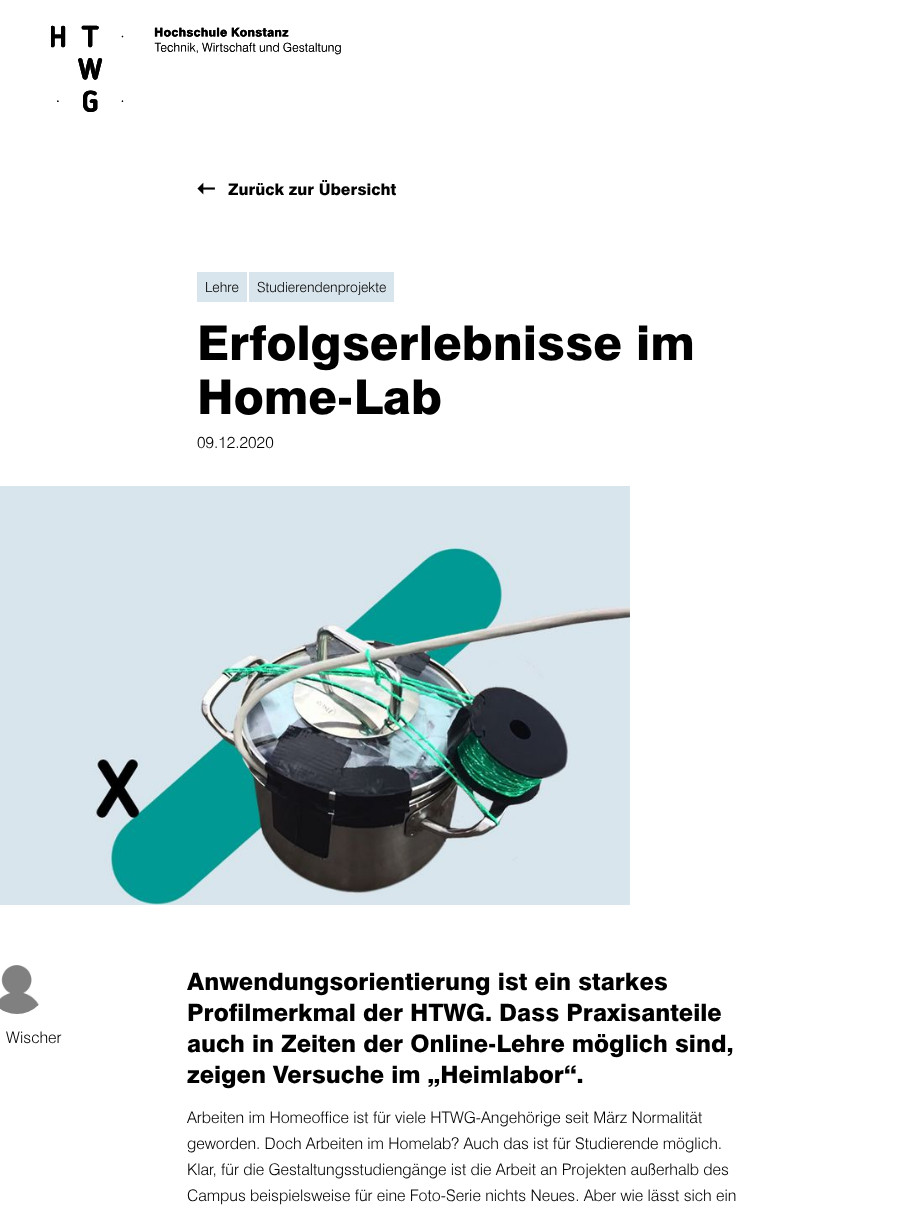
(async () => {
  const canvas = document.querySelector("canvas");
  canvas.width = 923;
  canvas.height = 1207;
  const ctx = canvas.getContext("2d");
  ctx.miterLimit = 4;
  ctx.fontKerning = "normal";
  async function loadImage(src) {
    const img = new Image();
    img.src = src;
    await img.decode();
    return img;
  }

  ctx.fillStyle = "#ffffff";
  ctx.fillRect(0, 0, 923, 1207);
  ctx.drawImage(await loadImage("img/1.png"), 51, 25, 290, 87);
  ctx.drawImage(await loadImage("img/2.png"), 197, 182, 18, 13);
  ctx.fillStyle = "#d9e5ec";
  ctx.fillRect(197, 272, 50, 30);
  ctx.fillRect(249, 272, 145, 30);
  ctx.drawImage(await loadImage("img/3.png"), 0, 486, 630, 419);
  ctx.drawImage(await loadImage("img/4.png"), 0, 965, 39, 49);
  ctx.font = "900 16px 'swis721'";
  ctx.fillStyle = "#000000";
  ctx.fillText("Zurück zur Übersicht", 228, 195);
  ctx.font = "300 14px 'swis721'";
  ctx.fillText("Lehre", 205, 292);
  ctx.fillText("Studierendenprojekte", 257, 292);
  ctx.font = "900 48px 'swis721'";
  ctx.fillText("Erfolgserlebnisse im", 197, 360);
  ctx.fillText("Home-Lab", 197, 414);
  ctx.font = "300 16px 'swis721'";
  ctx.fillText("09.12.2020", 197, 448);
  ctx.fillText("Wischer", 6, 1043);
  ctx.font = "900 24px 'swis721'";
  for (const [text, x, y] of [
    ["Anwendungsorientierung ist ein starkes", 187, 990],
    ["Profilmerkmal der HTWG. Dass Praxisanteile", 187, 1021],
    ["auch in Zeiten der Online-Lehre möglich sind,", 187, 1052],
    ["zeigen Versuche im „Heimlabor“.", 187, 1083],
  ]) {
    ctx.fillText(text, x, y);
  }
  ctx.font = "300 16px 'swis721'";
  for (const [text, x, y] of [
    ["Arbeiten im Homeoffice ist für viele HTWG-Angehörige seit März Normalität", 187, 1123],
    ["geworden. Doch Arbeiten im Homelab? Auch das ist für Studierende möglich.", 187, 1149],
    ["Klar, für die Gestaltungsstudiengänge ist die Arbeit an Projekten außerhalb des", 187, 1175],
    ["Campus beispielsweise für eine Foto-Serie nichts Neues. Aber wie lässt sich ein", 187, 1201],
  ]) {
    ctx.fillText(text, x, y);
  }
})();
